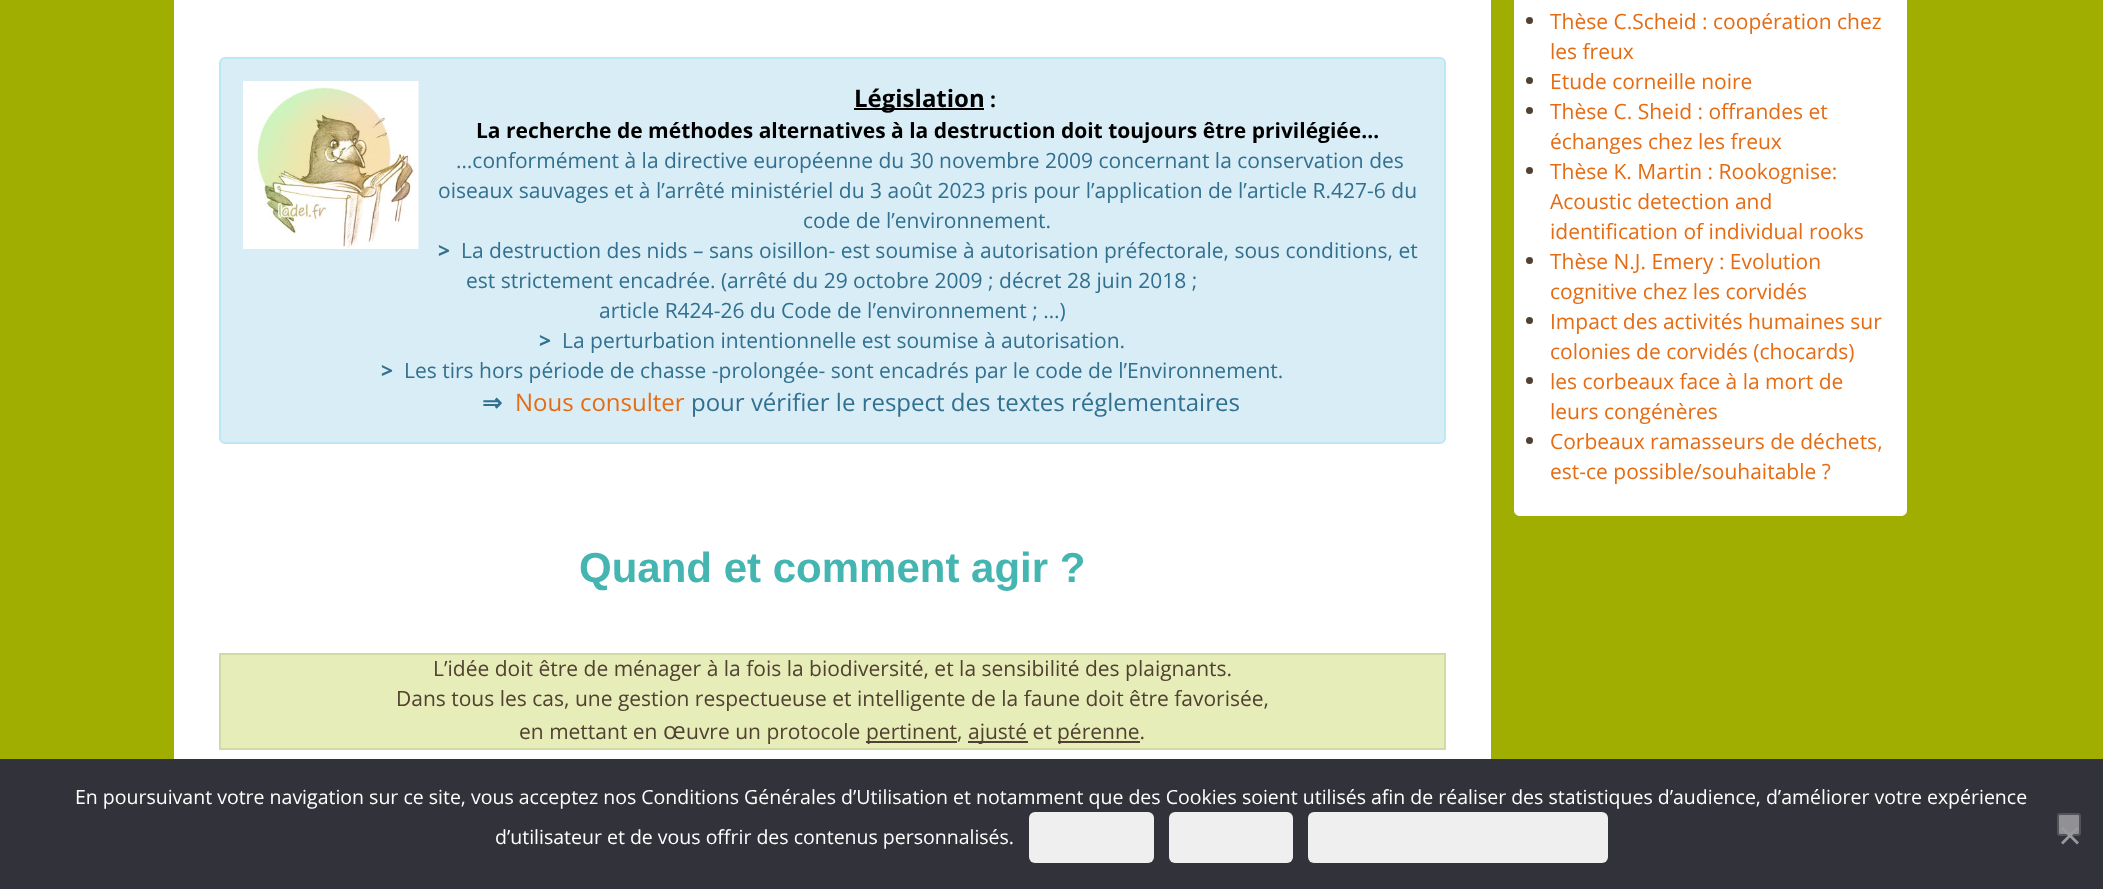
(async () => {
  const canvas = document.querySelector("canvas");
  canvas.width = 2103;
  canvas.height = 889;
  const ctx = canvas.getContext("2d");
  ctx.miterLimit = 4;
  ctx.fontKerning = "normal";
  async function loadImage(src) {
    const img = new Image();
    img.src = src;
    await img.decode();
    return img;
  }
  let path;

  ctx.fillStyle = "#9fae00";
  ctx.fillRect(0, 0, 2103, 889);
  ctx.fillStyle = "#ffffff";
  ctx.fillRect(174, 0, 1317, 759);
  ctx.fillStyle = "#d9edf7";
  ctx.beginPath();
  ctx.roundRect(220, 58, 1225, 385, 5);
  ctx.fill();
  ctx.strokeStyle = "#bce8f1";
  ctx.lineWidth = 2;
  ctx.stroke();
  ctx.drawImage(await loadImage("img/1.png"), 243, 81, 176, 168);
  ctx.fillStyle = "#000000";
  ctx.fillRect(854, 108, 130, 2);
  ctx.fillStyle = "#e6edb9";
  ctx.beginPath();
  ctx.rect(220, 654, 1225, 95);
  ctx.fill();
  ctx.strokeStyle = "#d2d9a4";
  ctx.stroke();
  for (const [x, y, w, h, color] of [
    [866, 741, 91, 2, "#514131"],
    [968, 741, 60, 2, "#514131"],
    [1058, 741, 82, 2, "#514131"],
  ]) {
    ctx.fillStyle = color;
    ctx.fillRect(x, y, w, h);
  }
  ctx.fillStyle = "#ffffff";
  path = new Path2D("M1514-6H1907V510C1907 513.5 1904.5 516 1901 516H1520C1516.5 516 1514 513.5 1514 510Z");
  ctx.fill(path);
  ctx.fillStyle = "#514131";
  ctx.beginPath();
  ctx.arc(1529.5, 20.5, 3.5, 0, Math.PI * 2);
  ctx.fill();
  ctx.beginPath();
  ctx.arc(1529.5, 80.5, 3.5, 0, Math.PI * 2);
  ctx.fill();
  ctx.beginPath();
  ctx.arc(1529.5, 110.5, 3.5, 0, Math.PI * 2);
  ctx.fill();
  ctx.beginPath();
  ctx.arc(1529.5, 170.5, 3.5, 0, Math.PI * 2);
  ctx.fill();
  ctx.beginPath();
  ctx.arc(1529.5, 260.5, 3.5, 0, Math.PI * 2);
  ctx.fill();
  ctx.beginPath();
  ctx.arc(1529.5, 320.5, 3.5, 0, Math.PI * 2);
  ctx.fill();
  ctx.beginPath();
  ctx.arc(1529.5, 380.5, 3.5, 0, Math.PI * 2);
  ctx.fill();
  ctx.beginPath();
  ctx.arc(1529.5, 440.5, 3.5, 0, Math.PI * 2);
  ctx.fill();
  ctx.fillStyle = "#32323a";
  ctx.fillRect(0, 759, 2103, 130);
  ctx.fillStyle = "#efefef";
  ctx.beginPath();
  ctx.roundRect(1029, 812, 125, 51, 6);
  ctx.fill();
  ctx.beginPath();
  ctx.roundRect(1169, 812, 124, 51, 6);
  ctx.fill();
  ctx.beginPath();
  ctx.roundRect(1308, 812, 300, 51, 6);
  ctx.fill();
  ctx.fillStyle = "#919195";
  ctx.beginPath();
  ctx.roundRect(2058, 814, 22, 21, 2);
  ctx.fill();
  ctx.strokeStyle = "#545458";
  ctx.stroke();
  ctx.fillStyle = "#99999d";
  path = new Path2D("M2077 826.5L2079 828.5L2063 844.5L2061 842.5Z");
  ctx.fill(path);
  path = new Path2D("M2061 828.5L2063 826.5L2079 842.5L2077 844.5Z");
  ctx.fill(path);
  ctx.font = "bold 24px Open Sans";
  ctx.fillStyle = "#000000";
  ctx.fillText("Législation", 854, 107);
  ctx.font = "bold 21px Open Sans";
  ctx.fillText(":", 990, 107);
  ctx.fillText("La recherche de méthodes alternatives à la destruction doit toujours être privilégiée…", 476, 138);
  ctx.font = "21px Open Sans";
  ctx.fillStyle = "#31708f";
  for (const [text, x, y] of [
    ["…conformément à la directive européenne du 30 novembre 2009 concernant la conservation des", 456, 168],
    ["oiseaux sauvages et à l’arrêté ministériel du 3 août 2023 pris pour l’application de l’article R.427-6 du", 438, 198],
    ["code de l’environnement.", 803, 228],
  ]) {
    ctx.fillText(text, x, y);
  }
  ctx.font = "bold 21px Open Sans";
  ctx.fillText(">", 438, 258);
  ctx.font = "21px Open Sans";
  for (const [text, x, y] of [
    ["La destruction des nids – sans oisillon- est soumise à autorisation préfectorale, sous conditions, et", 461, 258],
    ["est strictement encadrée. (arrêté du 29 octobre 2009 ; décret 28 juin 2018 ;", 466, 288],
    ["article R424-26 du Code de l’environnement ; …)", 599, 318],
  ]) {
    ctx.fillText(text, x, y);
  }
  ctx.font = "bold 21px Open Sans";
  ctx.fillText(">", 539, 348);
  ctx.font = "21px Open Sans";
  ctx.fillText("La perturbation intentionnelle est soumise à autorisation.", 562, 348);
  ctx.font = "bold 21px Open Sans";
  ctx.fillText(">", 381, 378);
  ctx.font = "21px Open Sans";
  ctx.fillText("Les tirs hors période de chasse -prolongée- sont encadrés par le code de l’Environnement.", 404, 378);
  ctx.font = "bold 24px DejaVu Sans";
  ctx.fillText("⇒", 482, 411);
  ctx.font = "24px Open Sans";
  ctx.fillStyle = "#e56c13";
  ctx.fillText("Nous consulter", 515, 411);
  ctx.fillStyle = "#31708f";
  ctx.fillText("pour vérifier le respect des textes réglementaires", 691, 411);
  ctx.font = "bold 42px Liberation Sans";
  ctx.fillStyle = "#44b5b1";
  ctx.fillText("Quand et comment agir ?", 579, 582);
  ctx.font = "21px Open Sans";
  ctx.fillStyle = "#514131";
  for (const [text, x, y] of [
    ["L’idée doit être de ménager à la fois la biodiversité, et la sensibilité des plaignants.", 433, 676],
    ["Dans tous les cas, une gestion respectueuse et intelligente de la faune doit être favorisée,", 396, 706],
    ["en mettant en", 519, 739],
  ]) {
    ctx.fillText(text, x, y);
  }
  ctx.font = "24px Open Sans";
  ctx.fillText("œ", 663, 739);
  ctx.font = "21px Open Sans";
  for (const [text, x, y] of [
    ["uvre un protocole", 686, 739],
    ["pertinent,", 866, 739],
    ["ajusté et", 968, 739],
    ["pérenne.", 1057, 739],
  ]) {
    ctx.fillText(text, x, y);
  }
  ctx.fillStyle = "#e56c13";
  for (const [text, x, y] of [
    ["Thèse C.Scheid : coopération chez", 1550, 29],
    ["les freux", 1550, 59],
    ["Etude corneille noire", 1550, 89],
    ["Thèse C. Sheid : offrandes et", 1550, 119],
    ["échanges chez les freux", 1550, 149],
    ["Thèse K. Martin : Rookognise:", 1550, 179],
    ["Acoustic detection and", 1550, 209],
    ["identification of individual rooks", 1550, 239],
    ["Thèse N.J. Emery : Evolution", 1550, 269],
    ["cognitive chez les corvidés", 1550, 299],
    ["Impact des activités humaines sur", 1550, 329],
    ["colonies de corvidés (chocards)", 1550, 359],
    ["les corbeaux face à la mort de", 1550, 389],
    ["leurs congénères", 1550, 419],
    ["Corbeaux ramasseurs de déchets,", 1550, 449],
    ["est-ce possible/souhaitable ?", 1550, 479],
  ]) {
    ctx.fillText(text, x, y);
  }
  ctx.font = "19.5px Open Sans";
  ctx.fillStyle = "#ffffff";
  ctx.fillText("En poursuivant votre navigation sur ce site, vous acceptez nos Conditions Générales d’Utilisation et notamment que des Cookies soient utilisés afin de réaliser des statistiques d’audience, d’améliorer votre expérience", 75, 804);
  ctx.fillText("d’utilisateur et de vous offrir des contenus personnalisés.", 495, 844);
})();
